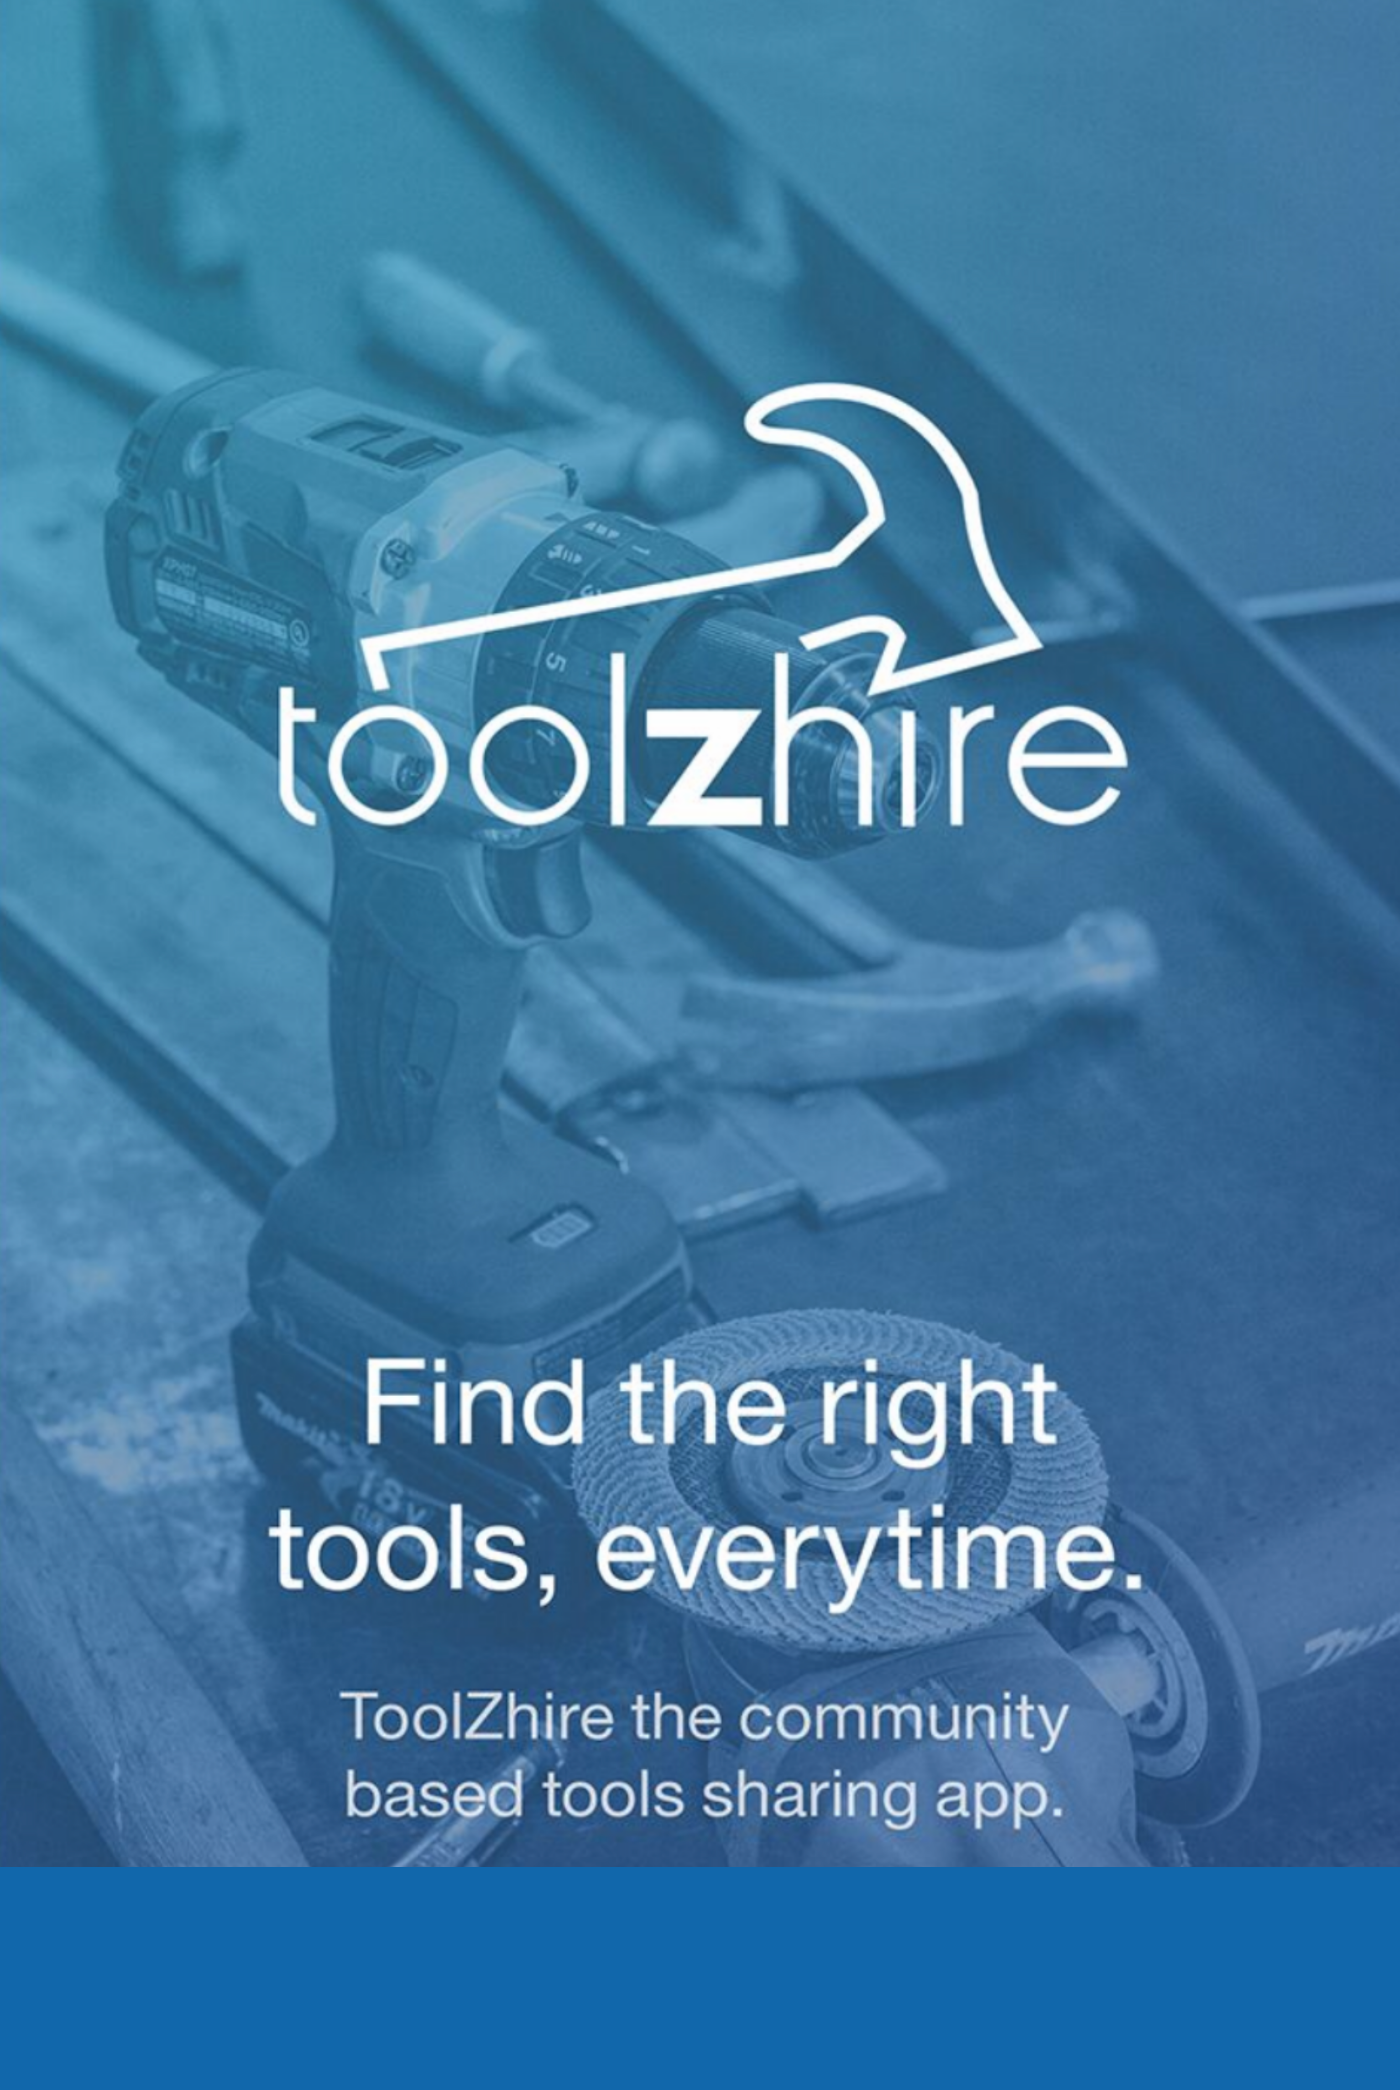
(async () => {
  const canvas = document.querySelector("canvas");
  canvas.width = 1400;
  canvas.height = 2090;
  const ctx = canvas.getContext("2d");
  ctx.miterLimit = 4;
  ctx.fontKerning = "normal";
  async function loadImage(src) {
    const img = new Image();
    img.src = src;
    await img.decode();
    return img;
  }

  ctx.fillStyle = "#1167ab";
  ctx.fillRect(0, 0, 1400, 2090);
  ctx.drawImage(await loadImage("img/1.png"), 0, 0, 1400, 1867);
})();
